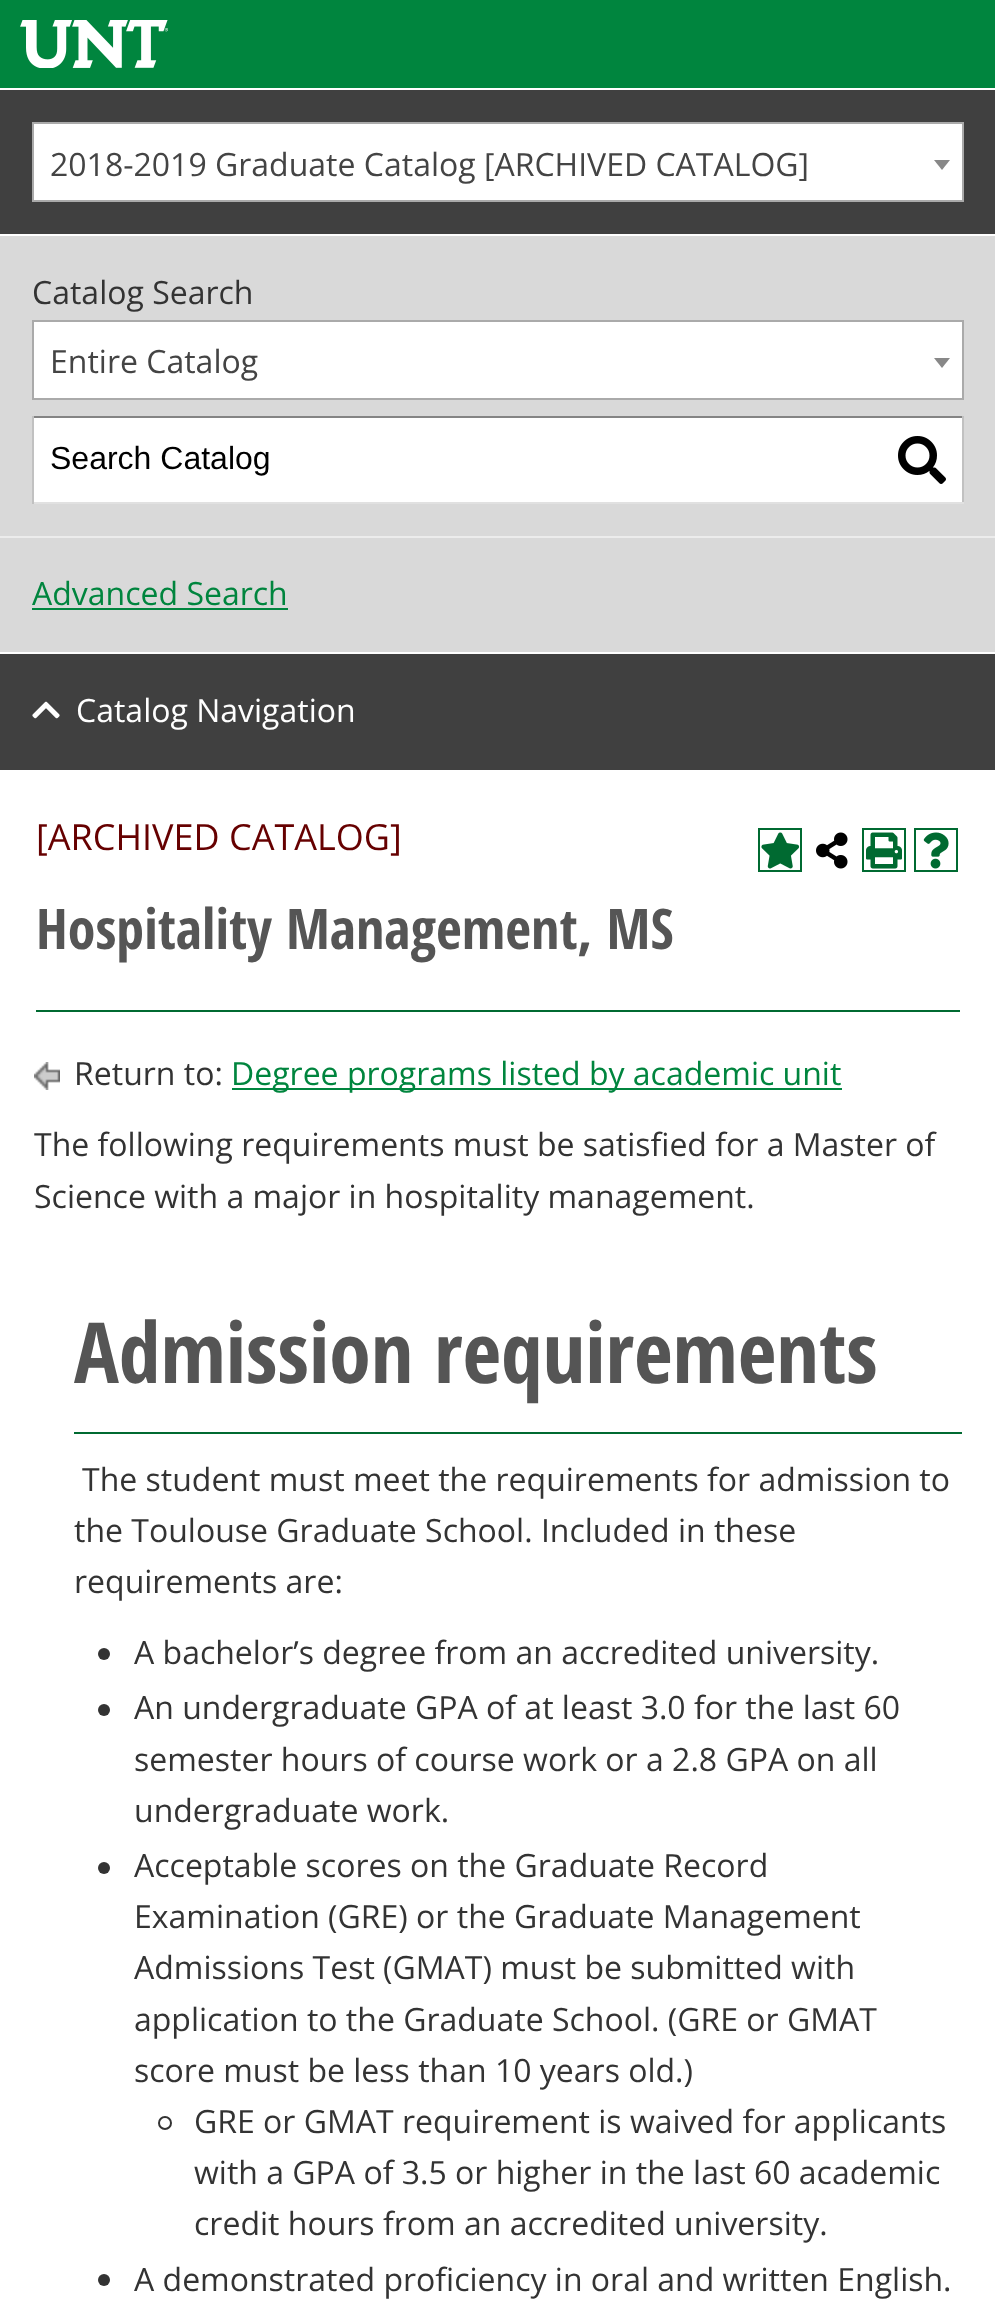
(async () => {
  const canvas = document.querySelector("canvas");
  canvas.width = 995;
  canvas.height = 2310;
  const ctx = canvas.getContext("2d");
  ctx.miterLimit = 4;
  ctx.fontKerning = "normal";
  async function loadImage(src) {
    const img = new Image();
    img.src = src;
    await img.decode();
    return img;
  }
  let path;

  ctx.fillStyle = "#ffffff";
  ctx.fillRect(0, 0, 995, 2310);
  ctx.fillStyle = "#00853e";
  ctx.fillRect(0, 0, 995, 88);
  ctx.drawImage(await loadImage("img/1.png"), 20, 20, 148, 48);
  ctx.fillStyle = "#404040";
  ctx.fillRect(0, 90, 995, 144);
  ctx.fillStyle = "#ffffff";
  ctx.beginPath();
  ctx.rect(33, 123, 930, 78);
  ctx.fill();
  ctx.strokeStyle = "#aaaaaa";
  ctx.lineWidth = 2;
  ctx.stroke();
  ctx.fillStyle = "#888888";
  path = new Path2D("M934 160H950L942 170Z");
  ctx.fill(path);
  ctx.fillStyle = "#d9d9d9";
  ctx.fillRect(0, 236, 995, 416);
  ctx.fillStyle = "#ffffff";
  ctx.beginPath();
  ctx.rect(33, 321, 930, 78);
  ctx.fill();
  ctx.stroke();
  ctx.fillStyle = "#888888";
  path = new Path2D("M934 358H950L942 368Z");
  ctx.fill(path);
  for (const [x, y, w, h, color] of [
    [34, 418, 928, 84, "#ffffff"],
    [32, 416, 932, 2, "#848484"],
    [962, 416, 2, 88, "#c1c1c1"],
    [32, 502, 932, 2, "#e1e1e1"],
    [32, 416, 2, 88, "#c1c1c1"],
  ]) {
    ctx.fillStyle = color;
    ctx.fillRect(x, y, w, h);
  }
  ctx.drawImage(await loadImage("img/2.png"), 898, 436, 48, 48);
  for (const [x, y, w, h, color] of [
    [0, 536, 995, 2, "#ececec"],
    [32, 608, 256, 2, "#00853e"],
    [0, 654, 995, 116, "#404040"],
  ]) {
    ctx.fillStyle = color;
    ctx.fillRect(x, y, w, h);
  }
  ctx.drawImage(await loadImage("img/3.png"), 32, 701, 28, 18);
  ctx.strokeStyle = "#006a31";
  ctx.strokeRect(759, 829, 42, 42);
  ctx.drawImage(await loadImage("img/4.png"), 761, 832, 39, 37);
  ctx.drawImage(await loadImage("img/5.png"), 816, 832, 32, 37);
  ctx.strokeRect(863, 829, 42, 42);
  ctx.drawImage(await loadImage("img/6.png"), 866, 832, 36, 37);
  ctx.strokeRect(915, 829, 42, 42);
  ctx.drawImage(await loadImage("img/7.png"), 923, 832, 26, 37);
  ctx.fillStyle = "#006a31";
  ctx.fillRect(36, 1010, 924, 2);
  ctx.drawImage(await loadImage("img/8.png"), 34, 1062, 26, 28);
  ctx.fillStyle = "#00853e";
  ctx.fillRect(232, 1088, 610, 2);
  ctx.fillStyle = "#006a31";
  ctx.fillRect(74, 1432, 888, 2);
  ctx.fillStyle = "#333333";
  ctx.beginPath();
  ctx.arc(104, 1654, 6, 0, Math.PI * 2);
  ctx.fill();
  ctx.beginPath();
  ctx.arc(104, 1710, 6, 0, Math.PI * 2);
  ctx.fill();
  ctx.beginPath();
  ctx.arc(104, 1868, 6, 0, Math.PI * 2);
  ctx.fill();
  ctx.beginPath();
  ctx.arc(165, 2123, 6, 0, Math.PI * 2);
  ctx.strokeStyle = "#333333";
  ctx.stroke();
  ctx.beginPath();
  ctx.arc(104, 2280, 6, 0, Math.PI * 2);
  ctx.fill();
  ctx.font = "32px Open Sans";
  ctx.fillStyle = "#444444";
  ctx.fillText("2018-2019 Graduate Catalog [ARCHIVED CATALOG]", 50, 176);
  ctx.fillStyle = "#333333";
  ctx.fillText("Catalog Search", 32, 304);
  ctx.fillStyle = "#444444";
  ctx.fillText("Entire Catalog", 50, 373);
  ctx.font = "32px Liberation Sans";
  ctx.fillStyle = "#000000";
  ctx.fillText("Search Catalog", 50, 469);
  ctx.font = "32px Open Sans";
  ctx.fillStyle = "#00853e";
  ctx.fillText("Advanced Search", 32, 605);
  ctx.fillStyle = "#ffffff";
  ctx.fillText("Catalog Navigation", 76, 722);
  ctx.font = "36px Open Sans";
  ctx.fillStyle = "#660000";
  ctx.fillText("[ARCHIVED CATALOG]", 36, 850);
  ctx.font = "bold 56px Open Sans Condensed";
  ctx.fillStyle = "#555555";
  ctx.fillText("Hospitality Management, MS", 36, 949);
  ctx.font = "32px Open Sans";
  ctx.fillStyle = "#333333";
  ctx.fillText("Return to:", 74, 1085);
  ctx.fillStyle = "#00853e";
  ctx.fillText("Degree programs listed by academic unit", 231, 1085);
  ctx.fillStyle = "#333333";
  ctx.fillText("The following requirements must be satisfied for a Master of", 34, 1156);
  ctx.fillText("Science with a major in hospitality management.", 34, 1208);
  ctx.font = "bold 84px Open Sans Condensed";
  ctx.fillStyle = "#555555";
  ctx.fillText("Admission requirements", 74, 1383);
  ctx.font = "32px Open Sans";
  ctx.fillStyle = "#333333";
  for (const [text, x, y] of [
    ["The student must meet the requirements for admission to", 82, 1491],
    ["the Toulouse Graduate School. Included in these", 74, 1542],
    ["requirements are:", 74, 1593],
    ["A bachelor’s degree from an accredited university.", 134, 1664],
    ["An undergraduate GPA of at least 3.0 for the last 60", 134, 1719],
    ["semester hours of course work or a 2.8 GPA on all", 134, 1771],
    ["undergraduate work.", 134, 1822],
    ["Acceptable scores on the Graduate Record", 134, 1877],
    ["Examination (GRE) or the Graduate Management", 134, 1928],
    ["Admissions Test (GMAT) must be submitted with", 134, 1979],
    ["application to the Graduate School. (GRE or GMAT", 134, 2031],
    ["score must be less than 10 years old.)", 134, 2082],
    ["GRE or GMAT requirement is waived for applicants", 194, 2133],
    ["with a GPA of 3.5 or higher in the last 60 academic", 194, 2184],
    ["credit hours from an accredited university.", 194, 2235],
    ["A demonstrated proficiency in oral and written English.", 134, 2291],
  ]) {
    ctx.fillText(text, x, y);
  }
})();
